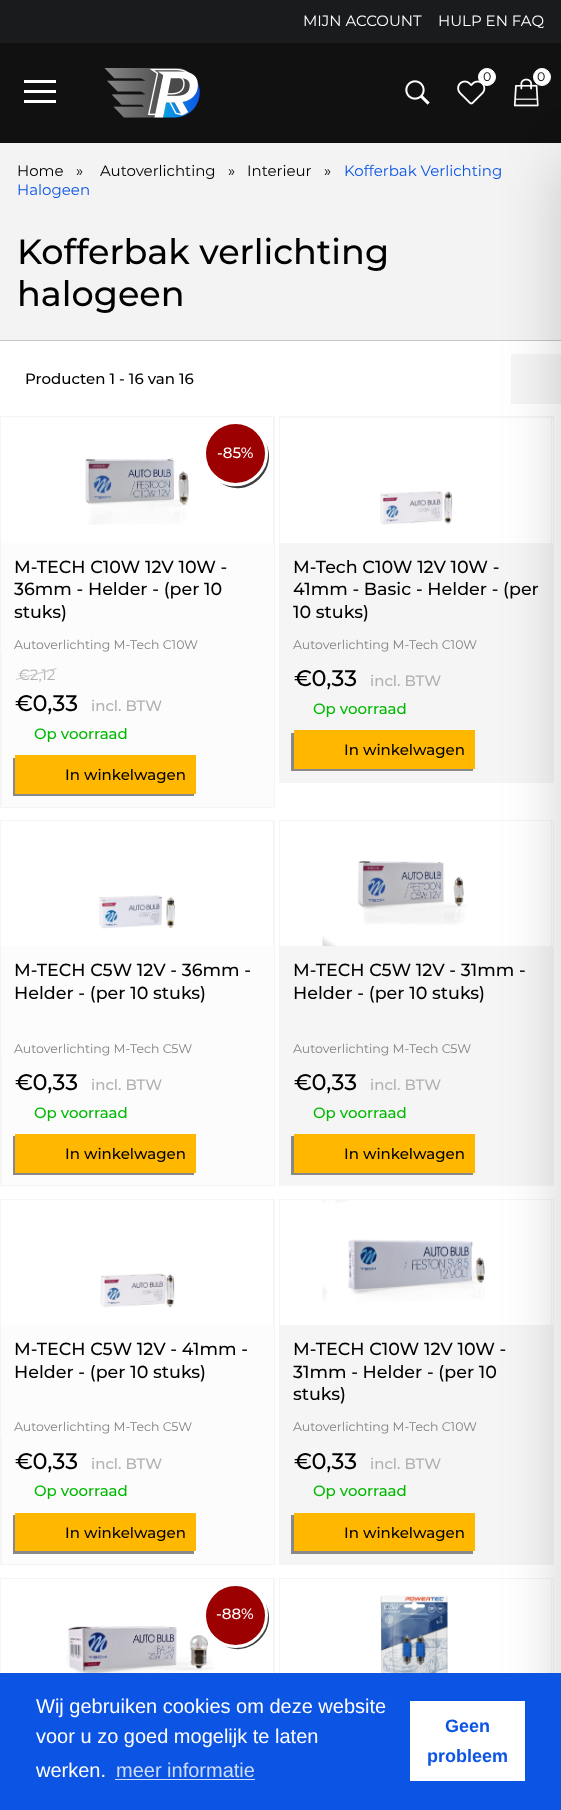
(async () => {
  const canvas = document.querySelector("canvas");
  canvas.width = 561;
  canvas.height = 1810;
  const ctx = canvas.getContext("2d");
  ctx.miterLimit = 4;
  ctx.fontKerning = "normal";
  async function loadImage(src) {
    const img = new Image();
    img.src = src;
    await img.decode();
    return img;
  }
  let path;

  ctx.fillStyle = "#ffffff";
  ctx.fillRect(0, 0, 561, 1810);
  ctx.fillStyle = "#191b1d";
  ctx.fillRect(0, 0, 561, 43);
  ctx.fillStyle = "#111111";
  ctx.fillRect(0, 43, 561, 100);
  ctx.drawImage(await loadImage("img/2.png"), 457, 80, 29, 25);
  ctx.fillStyle = "#ffffff";
  ctx.beginPath();
  ctx.arc(487, 77, 8.5, 0, Math.PI * 2);
  ctx.fill();
  ctx.strokeStyle = "#ffffff";
  ctx.stroke();
  ctx.drawImage(await loadImage("img/3.png"), 513, 78, 26, 29);
  ctx.beginPath();
  ctx.arc(542, 77, 8.5, 0, Math.PI * 2);
  ctx.fill();
  ctx.stroke();
  for (const [x, y, w, h, color] of [
    [0, 143, 561, 197, "#f3f3f3"],
    [0, 340, 561, 1, "#c5c5c5"],
    [511, 354, 50, 50, "#f5f5f5"],
    [279, 416, 275, 367, "#f5f5f5"],
    [280, 418, 273, 125, "#ffffff"],
    [551, 418, 1, 125, "#f5f5f5"],
  ]) {
    ctx.fillStyle = color;
    ctx.fillRect(x, y, w, h);
  }
  ctx.fillStyle = "#8a888a";
  path = new Path2D("M291 733V771H473V769H294V733Z");
  ctx.fill(path);
  for (const [x, y, w, h, color] of [
    [294, 730, 181, 39, "#ffb700"],
    [279, 820, 275, 366, "#f5f5f5"],
    [280, 821, 273, 125, "#ffffff"],
    [551, 821, 1, 125, "#f5f5f5"],
  ]) {
    ctx.fillStyle = color;
    ctx.fillRect(x, y, w, h);
  }
  ctx.fillStyle = "#8a888a";
  path = new Path2D("M291 1136V1175H473V1172H294V1136Z");
  ctx.fill(path);
  for (const [x, y, w, h, color] of [
    [294, 1134, 181, 39, "#ffb700"],
    [279, 1199, 275, 366, "#f5f5f5"],
    [280, 1200, 273, 125, "#ffffff"],
    [551, 1200, 1, 125, "#f5f5f5"],
  ]) {
    ctx.fillStyle = color;
    ctx.fillRect(x, y, w, h);
  }
  ctx.drawImage(await loadImage("img/10.png"), 322, 1200, 163, 103);
  ctx.fillStyle = "#8a888a";
  path = new Path2D("M291 1515V1554H473V1551H294V1515Z");
  ctx.fill(path);
  for (const [x, y, w, h, color] of [
    [294, 1513, 181, 38, "#ffb700"],
    [279, 1578, 275, 95, "#f5f5f5"],
    [280, 1579, 273, 94, "#ffffff"],
    [551, 1579, 1, 94, "#f5f5f5"],
  ]) {
    ctx.fillStyle = color;
    ctx.fillRect(x, y, w, h);
  }
  ctx.fillStyle = "rgba(0, 0, 0, 0.18)";
  ctx.filter = "blur(30px)";
  ctx.beginPath();
  ctx.rect(561, 163, 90, 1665);
  ctx.fill();
  ctx.filter = "none";
  ctx.drawImage(await loadImage("img/1.png"), 104, 68, 96, 50);
  ctx.drawImage(await loadImage("img/4.png"), 405, 80, 25, 25);
  for (const [x, y, w, h, color] of [
    [24, 90, 32, 3, "#ffffff"],
    [24, 80, 32, 3, "#ffffff"],
    [24, 100, 32, 3, "#ffffff"],
  ]) {
    ctx.fillStyle = color;
    ctx.fillRect(x, y, w, h);
  }
  ctx.fillStyle = "#fcfcfc";
  ctx.beginPath();
  ctx.rect(0.5, 416.5, 274, 391);
  ctx.fill();
  ctx.strokeStyle = "#f5f5f5";
  ctx.stroke();
  ctx.fillStyle = "#ffffff";
  ctx.fillRect(1, 418, 272, 125);
  ctx.fillStyle = "#f5f5f5";
  ctx.fillRect(273, 418, 1, 125);
  ctx.fillStyle = "#404040";
  path = new Path2D("M219 482C247 502 281 470 265 441C277 469 246 497 219 482Z");
  ctx.fill(path);
  ctx.fillStyle = "#9c0000";
  ctx.beginPath();
  ctx.arc(235.5, 453.5, 31, 0, Math.PI * 2);
  ctx.fill();
  ctx.strokeStyle = "#ffffff";
  ctx.lineWidth = 3;
  ctx.stroke();
  ctx.drawImage(await loadImage("img/5.png"), 85, 458, 104, 67);
  ctx.fillStyle = "#f5f5f5";
  ctx.fillRect(1, 653, 1, 153);
  ctx.fillStyle = "#8a888a";
  path = new Path2D("M13 758V796H194V794H15V758Z");
  ctx.fill(path);
  ctx.fillStyle = "#ffb700";
  ctx.fillRect(15, 755, 181, 39);
  ctx.drawImage(await loadImage("img/6.png"), 380, 491, 73, 34);
  ctx.fillStyle = "#fcfcfc";
  ctx.fillRect(1, 946, 273, 239);
  ctx.strokeStyle = "#f5f5f5";
  ctx.lineWidth = 1;
  ctx.strokeRect(0.5, 820.5, 274, 365);
  ctx.fillStyle = "#f5f5f5";
  ctx.fillRect(273, 821, 1, 125);
  ctx.drawImage(await loadImage("img/7.png"), 99, 895, 76, 34);
  ctx.fillRect(1, 1056, 1, 129);
  ctx.fillStyle = "#8a888a";
  path = new Path2D("M13 1136V1175H194V1172H15V1136Z");
  ctx.fill(path);
  ctx.fillStyle = "#ffb700";
  ctx.fillRect(15, 1134, 181, 39);
  ctx.drawImage(await loadImage("img/8.png"), 322, 861, 145, 85);
  ctx.fillStyle = "#fcfcfc";
  ctx.fillRect(1, 1325, 273, 239);
  ctx.strokeRect(0.5, 1199.5, 274, 365);
  ctx.fillStyle = "#f5f5f5";
  ctx.fillRect(273, 1200, 1, 125);
  ctx.drawImage(await loadImage("img/9.png"), 100, 1273, 75, 35);
  ctx.fillRect(1, 1435, 1, 129);
  ctx.fillStyle = "#8a888a";
  path = new Path2D("M13 1515V1554H194V1551H15V1515Z");
  ctx.fill(path);
  ctx.fillStyle = "#ffb700";
  ctx.fillRect(15, 1513, 181, 38);
  ctx.strokeRect(0.5, 1578.5, 274, 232);
  ctx.fillStyle = "#f5f5f5";
  ctx.fillRect(273, 1579, 1, 94);
  ctx.fillStyle = "#404040";
  path = new Path2D("M221 1644C249 1662 282 1629 264 1601C277 1628 248 1657 221 1644Z");
  ctx.fill(path);
  ctx.drawImage(await loadImage("img/11.png"), 66, 1626, 149, 47);
  ctx.fillStyle = "#9c0000";
  ctx.beginPath();
  ctx.arc(235.5, 1615.5, 31, 0, Math.PI * 2);
  ctx.fill();
  ctx.strokeStyle = "#ffffff";
  ctx.lineWidth = 3;
  ctx.stroke();
  ctx.drawImage(await loadImage("img/12.png"), 376, 1595, 75, 78);
  for (const [x, y, w, h, color] of [
    [0, 1673, 561, 137, "#0b54e4"],
    [115, 1779, 140, 1, "#ceddfa"],
    [410, 1701, 115, 80, "#ffffff"],
  ]) {
    ctx.fillStyle = color;
    ctx.fillRect(x, y, w, h);
  }
  ctx.font = "15px Montserrat";
  ctx.fillText("MIJN ACCOUNT", 303, 26);
  ctx.fillText("HULP EN FAQ", 438, 26);
  ctx.font = "12.5px Montserrat";
  ctx.fillStyle = "#000000";
  ctx.fillText("0", 483, 81);
  ctx.fillText("0", 537, 81);
  ctx.font = "15px Montserrat";
  for (const [text, x, y] of [
    ["Home", 17, 176],
    ["»", 76, 176],
    ["Autoverlichting", 100, 176],
    ["»", 228, 176],
    ["Interieur", 247, 176],
    ["»", 324, 176],
  ]) {
    ctx.fillText(text, x, y);
  }
  ctx.fillStyle = "#0b54e4";
  ctx.fillText("Kofferbak Verlichting", 344, 176);
  ctx.fillText("Halogeen", 17, 195);
  ctx.font = "500 35px Montserrat";
  ctx.fillStyle = "#000000";
  ctx.fillText("Kofferbak verlichting", 17, 264);
  ctx.fillText("halogeen", 17, 306);
  ctx.font = "500 15px Montserrat";
  ctx.fillText("Producten 1 - 16 van 16", 25, 384);
  ctx.fillStyle = "#ffffff";
  ctx.fillText("-85%", 217, 458);
  ctx.font = "500 17.5px Montserrat";
  ctx.fillStyle = "#000000";
  for (const [text, x, y] of [
    ["M-TECH C10W 12V 10W -", 14, 573],
    ["36mm - Helder - (per 10", 14, 595],
    ["stuks)", 14, 618],
  ]) {
    ctx.fillText(text, x, y);
  }
  ctx.font = "12.5px Montserrat";
  ctx.fillStyle = "#838383";
  ctx.fillText("Autoverlichting M-Tech C10W", 14, 649);
  ctx.font = "15px Montserrat";
  ctx.fillStyle = "#b1b1b1";
  ctx.fillText("€2,12", 18, 680);
  ctx.fillStyle = "#cecece";
  path = new Path2D("M16 679L56 668L57 669L16 680Z");
  ctx.fill(path);
  ctx.font = "500 22.5px Montserrat";
  ctx.fillStyle = "#000000";
  ctx.fillText("€0,33", 15, 711);
  ctx.font = "500 15px Montserrat";
  ctx.fillStyle = "#b1b1b1";
  ctx.fillText("incl. BTW", 91, 711);
  ctx.fillStyle = "#02b902";
  ctx.fillText("Op voorraad", 34, 739);
  ctx.fillStyle = "#000000";
  ctx.fillText("In winkelwagen", 65, 780);
  ctx.font = "500 17.5px Montserrat";
  for (const [text, x, y] of [
    ["M-Tech C10W 12V 10W -", 293, 573],
    ["41mm - Basic - Helder - (per", 293, 595],
    ["10 stuks)", 293, 618],
  ]) {
    ctx.fillText(text, x, y);
  }
  ctx.font = "12.5px Montserrat";
  ctx.fillStyle = "#838383";
  ctx.fillText("Autoverlichting M-Tech C10W", 293, 649);
  ctx.font = "500 22.5px Montserrat";
  ctx.fillStyle = "#000000";
  ctx.fillText("€0,33", 294, 686);
  ctx.font = "500 15px Montserrat";
  ctx.fillStyle = "#b1b1b1";
  ctx.fillText("incl. BTW", 370, 686);
  ctx.fillStyle = "#02b902";
  ctx.fillText("Op voorraad", 313, 714);
  ctx.fillStyle = "#000000";
  ctx.fillText("In winkelwagen", 344, 755);
  ctx.font = "500 17.5px Montserrat";
  ctx.fillText("M-TECH C5W 12V - 36mm -", 14, 976);
  ctx.fillText("Helder - (per 10 stuks)", 14, 999);
  ctx.font = "12.5px Montserrat";
  ctx.fillStyle = "#838383";
  ctx.fillText("Autoverlichting M-Tech C5W", 14, 1053);
  ctx.font = "500 22.5px Montserrat";
  ctx.fillStyle = "#000000";
  ctx.fillText("€0,33", 15, 1090);
  ctx.font = "500 15px Montserrat";
  ctx.fillStyle = "#b1b1b1";
  ctx.fillText("incl. BTW", 91, 1090);
  ctx.fillStyle = "#02b902";
  ctx.fillText("Op voorraad", 34, 1118);
  ctx.fillStyle = "#000000";
  ctx.fillText("In winkelwagen", 65, 1159);
  ctx.font = "500 17.5px Montserrat";
  ctx.fillText("M-TECH C5W 12V - 31mm -", 293, 976);
  ctx.fillText("Helder - (per 10 stuks)", 293, 999);
  ctx.font = "12.5px Montserrat";
  ctx.fillStyle = "#838383";
  ctx.fillText("Autoverlichting M-Tech C5W", 293, 1053);
  ctx.font = "500 22.5px Montserrat";
  ctx.fillStyle = "#000000";
  ctx.fillText("€0,33", 294, 1090);
  ctx.font = "500 15px Montserrat";
  ctx.fillStyle = "#b1b1b1";
  ctx.fillText("incl. BTW", 370, 1090);
  ctx.fillStyle = "#02b902";
  ctx.fillText("Op voorraad", 313, 1118);
  ctx.fillStyle = "#000000";
  ctx.fillText("In winkelwagen", 344, 1159);
  ctx.font = "500 17.5px Montserrat";
  ctx.fillText("M-TECH C5W 12V - 41mm -", 14, 1355);
  ctx.fillText("Helder - (per 10 stuks)", 14, 1378);
  ctx.font = "12.5px Montserrat";
  ctx.fillStyle = "#838383";
  ctx.fillText("Autoverlichting M-Tech C5W", 14, 1431);
  ctx.font = "500 22.5px Montserrat";
  ctx.fillStyle = "#000000";
  ctx.fillText("€0,33", 15, 1469);
  ctx.font = "500 15px Montserrat";
  ctx.fillStyle = "#b1b1b1";
  ctx.fillText("incl. BTW", 91, 1469);
  ctx.fillStyle = "#02b902";
  ctx.fillText("Op voorraad", 34, 1496);
  ctx.fillStyle = "#000000";
  ctx.fillText("In winkelwagen", 65, 1538);
  ctx.font = "500 17.5px Montserrat";
  for (const [text, x, y] of [
    ["M-TECH C10W 12V 10W -", 293, 1355],
    ["31mm - Helder - (per 10", 293, 1378],
    ["stuks)", 293, 1400],
  ]) {
    ctx.fillText(text, x, y);
  }
  ctx.font = "12.5px Montserrat";
  ctx.fillStyle = "#838383";
  ctx.fillText("Autoverlichting M-Tech C10W", 293, 1431);
  ctx.font = "500 22.5px Montserrat";
  ctx.fillStyle = "#000000";
  ctx.fillText("€0,33", 294, 1469);
  ctx.font = "500 15px Montserrat";
  ctx.fillStyle = "#b1b1b1";
  ctx.fillText("incl. BTW", 370, 1469);
  ctx.fillStyle = "#02b902";
  ctx.fillText("Op voorraad", 313, 1496);
  ctx.fillStyle = "#000000";
  ctx.fillText("In winkelwagen", 344, 1538);
  ctx.fillStyle = "#ffffff";
  ctx.fillText("-88%", 216, 1619);
  ctx.font = "20px Liberation Sans";
  for (const [text, x, y] of [
    ["Wij gebruiken cookies om deze website", 36, 1713],
    ["voor u zo goed mogelijk te laten", 36, 1743],
    ["werken.", 36, 1777],
  ]) {
    ctx.fillText(text, x, y);
  }
  ctx.fillStyle = "#ceddfa";
  ctx.fillText("meer informatie", 116, 1777);
  ctx.font = "bold 18px Liberation Sans";
  ctx.fillStyle = "#0b54e4";
  ctx.fillText("Geen", 445, 1732);
  ctx.fillText("probleem", 427, 1762);
})();
